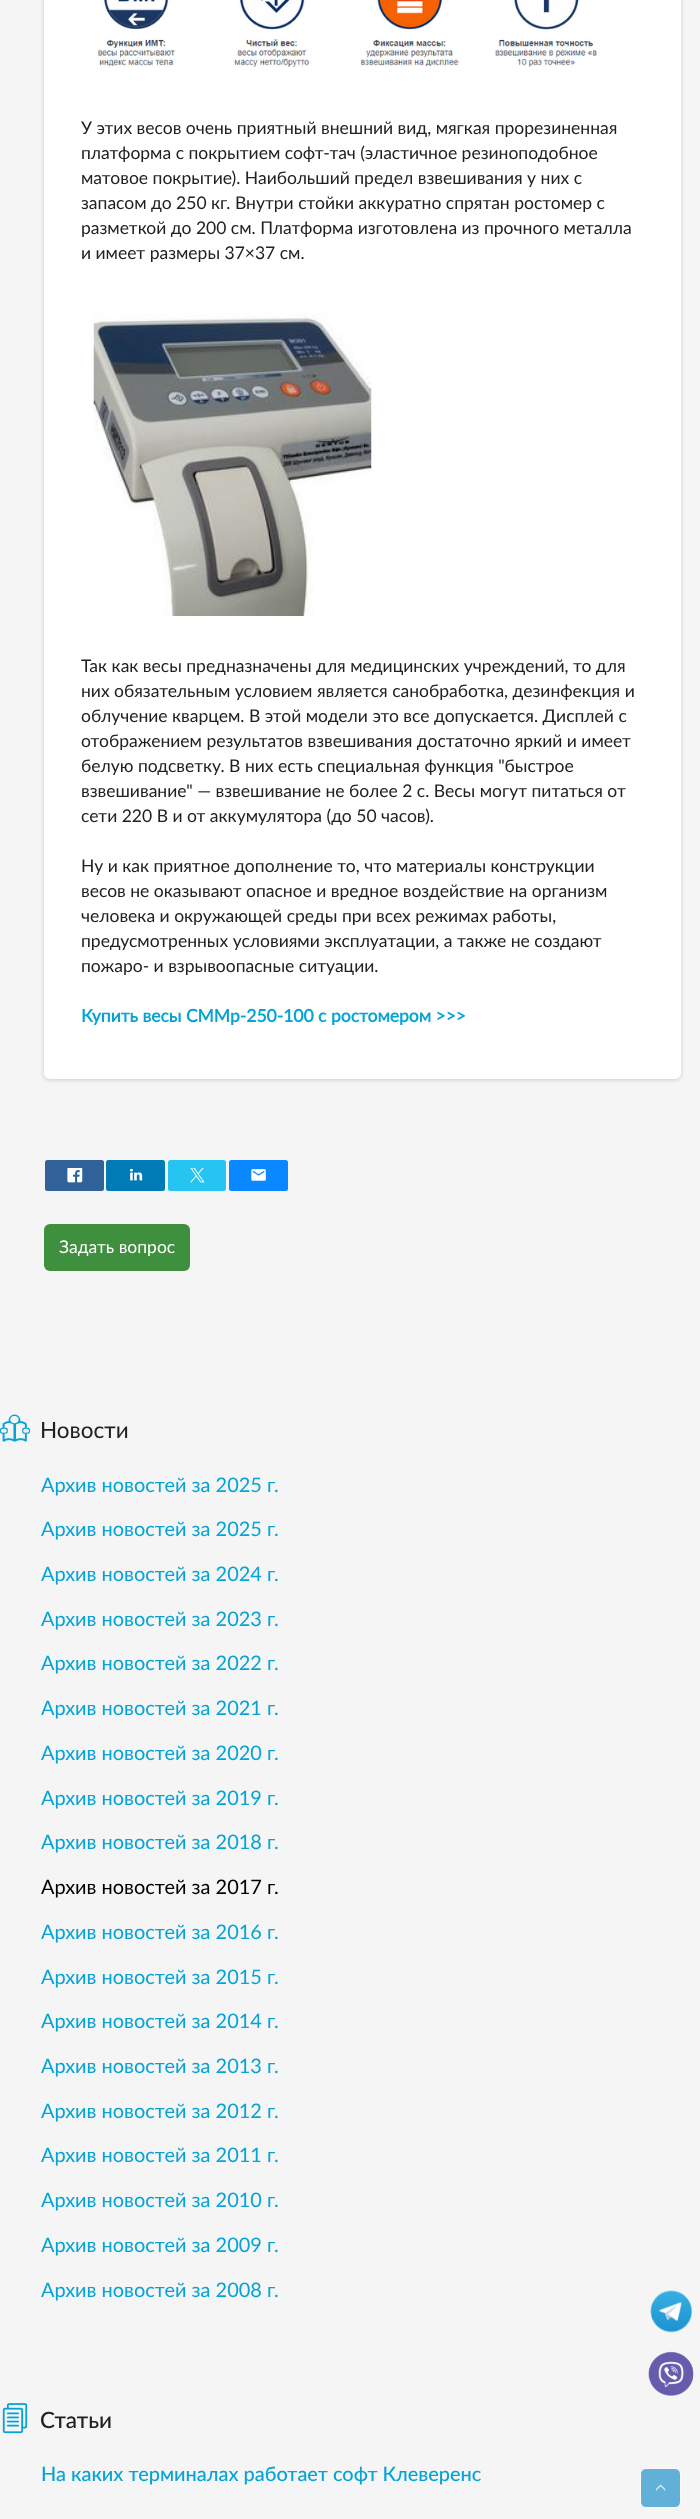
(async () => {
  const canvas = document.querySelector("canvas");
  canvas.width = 700;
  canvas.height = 2519;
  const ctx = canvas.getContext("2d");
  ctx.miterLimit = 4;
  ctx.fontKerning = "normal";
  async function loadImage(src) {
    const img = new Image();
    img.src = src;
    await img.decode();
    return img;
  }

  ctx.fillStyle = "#f5f5f5";
  ctx.fillRect(0, 0, 700, 2519);
  ctx.fillStyle = "rgba(117, 117, 117, 0.3)";
  ctx.filter = "blur(2px)";
  ctx.beginPath();
  ctx.roundRect(44, -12, 637, 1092, 6);
  ctx.fill();
  ctx.filter = "none";
  ctx.fillStyle = "#ffffff";
  ctx.beginPath();
  ctx.roundRect(44, -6, 637, 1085, 6);
  ctx.fill();
  ctx.drawImage(await loadImage("img/1.png"), 97, 0, 500, 67);
  ctx.drawImage(await loadImage("img/2.png"), 93, 313, 279, 303);
  ctx.fillStyle = "#306199";
  ctx.beginPath();
  ctx.roundRect(45, 1160, 59, 31, 2.5);
  ctx.fill();
  ctx.drawImage(await loadImage("img/3.png"), 67, 1168, 16, 15);
  ctx.fillStyle = "#007bb6";
  ctx.beginPath();
  ctx.roundRect(106, 1160, 59, 31, 2.5);
  ctx.fill();
  ctx.drawImage(await loadImage("img/4.png"), 130, 1168, 13, 13);
  ctx.fillStyle = "#26c4f1";
  ctx.beginPath();
  ctx.roundRect(168, 1160, 58, 31, 2.5);
  ctx.fill();
  ctx.drawImage(await loadImage("img/5.png"), 190, 1168, 15, 15);
  ctx.fillStyle = "#0a88ff";
  ctx.beginPath();
  ctx.roundRect(229, 1160, 59, 31, 2.5);
  ctx.fill();
  ctx.drawImage(await loadImage("img/6.png"), 251, 1169, 15, 12);
  ctx.fillStyle = "#3e8f3e";
  ctx.beginPath();
  ctx.roundRect(44, 1224, 146, 47, 6);
  ctx.fill();
  ctx.drawImage(await loadImage("img/7.png"), 0, 1414, 30, 28);
  ctx.drawImage(await loadImage("img/8.png"), 2, 2403, 26, 31);
  ctx.drawImage(await loadImage("img/9.png"), 650, 2290, 42, 43);
  ctx.drawImage(await loadImage("img/10.png"), 648, 2351, 46, 45);
  ctx.fillStyle = "#61b0d8";
  ctx.beginPath();
  ctx.roundRect(640.5, 2468.5, 40, 39, 5.5);
  ctx.fill();
  ctx.strokeStyle = "#fcfcfc";
  ctx.stroke();
  ctx.drawImage(await loadImage("img/11.png"), 655, 2484, 11, 7);
  ctx.font = "17.5px Lato";
  ctx.fillStyle = "#212121";
  for (const [text, x, y] of [
    ["У этих весов очень приятный внешний вид, мягкая прорезиненная", 81, 134],
    ["платформа с покрытием софт-тач (эластичное резиноподобное", 81, 159],
    ["матовое покрытие). Наибольший предел взвешивания у них с", 81, 184],
    ["запасом до 250 кг. Внутри стойки аккуратно спрятан ростомер с", 81, 209],
    ["разметкой до 200 см. Платформа изготовлена из прочного металла", 81, 234],
    ["и имеет размеры 37×37 см.", 81, 259],
    ["Так как весы предназначены для медицинских учреждений, то для", 81, 672],
    ["них обязательным условием является санобработка, дезинфекция и", 81, 697],
    ["облучение кварцем. В этой модели это все допускается. Дисплей с", 81, 722],
    ["отображением результатов взвешивания достаточно яркий и имеет", 81, 747],
    ["белую подсветку. В них есть специальная функция \"быстрое", 81, 772],
    ["взвешивание\" — взвешивание не более 2 с. Весы могут питаться от", 81, 797],
    ["сети 220 В и от аккумулятора (до 50 часов).", 81, 822],
    ["Ну и как приятное дополнение то, что материалы конструкции", 81, 872],
    ["весов не оказывают опасное и вредное воздействие на организм", 81, 897],
    ["человека и окружающей среды при всех режимах работы,", 81, 922],
    ["предусмотренных условиями эксплуатации, а также не создают", 81, 947],
    ["пожаро- и взрывоопасные ситуации.", 81, 972],
  ]) {
    ctx.fillText(text, x, y);
  }
  ctx.font = "bold 17.5px Lato";
  ctx.fillStyle = "#05a4d5";
  ctx.fillText("Купить весы СММр-250-100 с ростомером >>>", 81, 1022);
  ctx.font = "17.5px Lato";
  ctx.fillStyle = "#ffffff";
  ctx.fillText("Задать вопрос", 59, 1253);
  ctx.font = "22.5px Lato";
  ctx.fillStyle = "#212121";
  ctx.fillText("Новости", 40, 1438);
  ctx.font = "19.95px Lato";
  ctx.fillStyle = "#05a4d5";
  for (const [text, x, y] of [
    ["Архив новостей за 2025 г.", 41, 1492],
    ["Архив новостей за 2025 г.", 41, 1536],
    ["Архив новостей за 2024 г.", 41, 1581],
    ["Архив новостей за 2023 г.", 41, 1626],
    ["Архив новостей за 2022 г.", 41, 1670],
    ["Архив новостей за 2021 г.", 41, 1715],
    ["Архив новостей за 2020 г.", 41, 1760],
    ["Архив новостей за 2019 г.", 41, 1805],
    ["Архив новостей за 2018 г.", 41, 1849],
  ]) {
    ctx.fillText(text, x, y);
  }
  ctx.fillStyle = "#000000";
  ctx.fillText("Архив новостей за 2017 г.", 41, 1894);
  ctx.fillStyle = "#05a4d5";
  for (const [text, x, y] of [
    ["Архив новостей за 2016 г.", 41, 1939],
    ["Архив новостей за 2015 г.", 41, 1984],
    ["Архив новостей за 2014 г.", 41, 2028],
    ["Архив новостей за 2013 г.", 41, 2073],
    ["Архив новостей за 2012 г.", 41, 2118],
    ["Архив новостей за 2011 г.", 41, 2162],
    ["Архив новостей за 2010 г.", 41, 2207],
    ["Архив новостей за 2009 г.", 41, 2252],
    ["Архив новостей за 2008 г.", 41, 2297],
  ]) {
    ctx.fillText(text, x, y);
  }
  ctx.font = "500 22.5px Lato";
  ctx.fillStyle = "#212121";
  ctx.fillText("Статьи", 40, 2428);
  ctx.font = "500 19.95px Lato";
  ctx.fillStyle = "#05a4d5";
  ctx.fillText("На каких терминалах работает софт Клеверенс", 41, 2481);
})();
